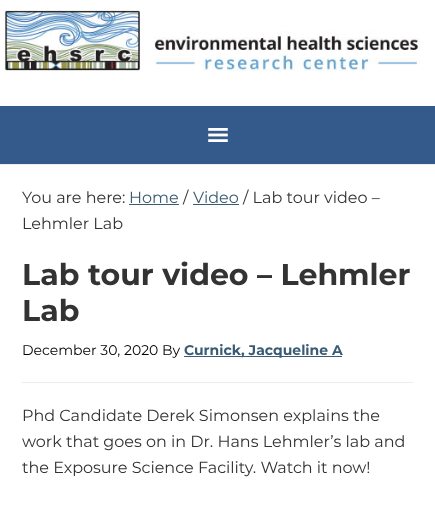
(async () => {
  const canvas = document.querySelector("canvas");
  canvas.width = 435;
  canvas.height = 528;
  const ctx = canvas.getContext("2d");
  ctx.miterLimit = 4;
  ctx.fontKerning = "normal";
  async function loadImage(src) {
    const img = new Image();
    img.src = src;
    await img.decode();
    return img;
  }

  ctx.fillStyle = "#ffffff";
  ctx.fillRect(0, 0, 435, 528);
  ctx.drawImage(await loadImage("img/1.png"), 4, 10, 417, 61);
  ctx.fillStyle = "#335a8a";
  ctx.fillRect(0, 106, 435, 58);
  ctx.drawImage(await loadImage("img/2.png"), 208, 128, 20, 14);
  for (const [x, y, w, h, color] of [
    [0, 164, 435, 1, "#ececec"],
    [129, 204, 50, 1, "#395c74"],
    [193, 204, 46, 1, "#395c74"],
    [22, 382, 391, 1, "#ececec"],
    [184, 356, 158, 1, "#395c74"],
  ]) {
    ctx.fillStyle = color;
    ctx.fillRect(x, y, w, h);
  }
  ctx.font = "16px Montserrat";
  ctx.fillStyle = "#333333";
  ctx.fillText("You are here:", 22, 203);
  ctx.fillStyle = "#395c74";
  ctx.fillText("Home", 129, 203);
  ctx.fillStyle = "#333333";
  ctx.fillText("/", 183, 203);
  ctx.fillStyle = "#395c74";
  ctx.fillText("Video", 193, 203);
  ctx.fillStyle = "#333333";
  ctx.fillText("/ Lab tour video –", 243, 203);
  ctx.fillText("Lehmler Lab", 22, 229);
  ctx.font = "bold 30px Montserrat";
  ctx.fillText("Lab tour video – Lehmler", 22, 285);
  ctx.fillText("Lab", 22, 321);
  ctx.font = "14px Montserrat";
  ctx.fillStyle = "#000000";
  ctx.fillText("December 30, 2020 By", 22, 355);
  ctx.font = "bold 14px Montserrat";
  ctx.fillStyle = "#395c74";
  ctx.fillText("Curnick, Jacqueline A", 184, 355);
  ctx.font = "16px Montserrat";
  ctx.fillStyle = "#333333";
  for (const [text, x, y] of [
    ["Phd Candidate Derek Simonsen explains the", 22, 421],
    ["work that goes on in Dr. Hans Lehmler’s lab and", 22, 447],
    ["the Exposure Science Facility. Watch it now!", 22, 473],
  ]) {
    ctx.fillText(text, x, y);
  }
})();
